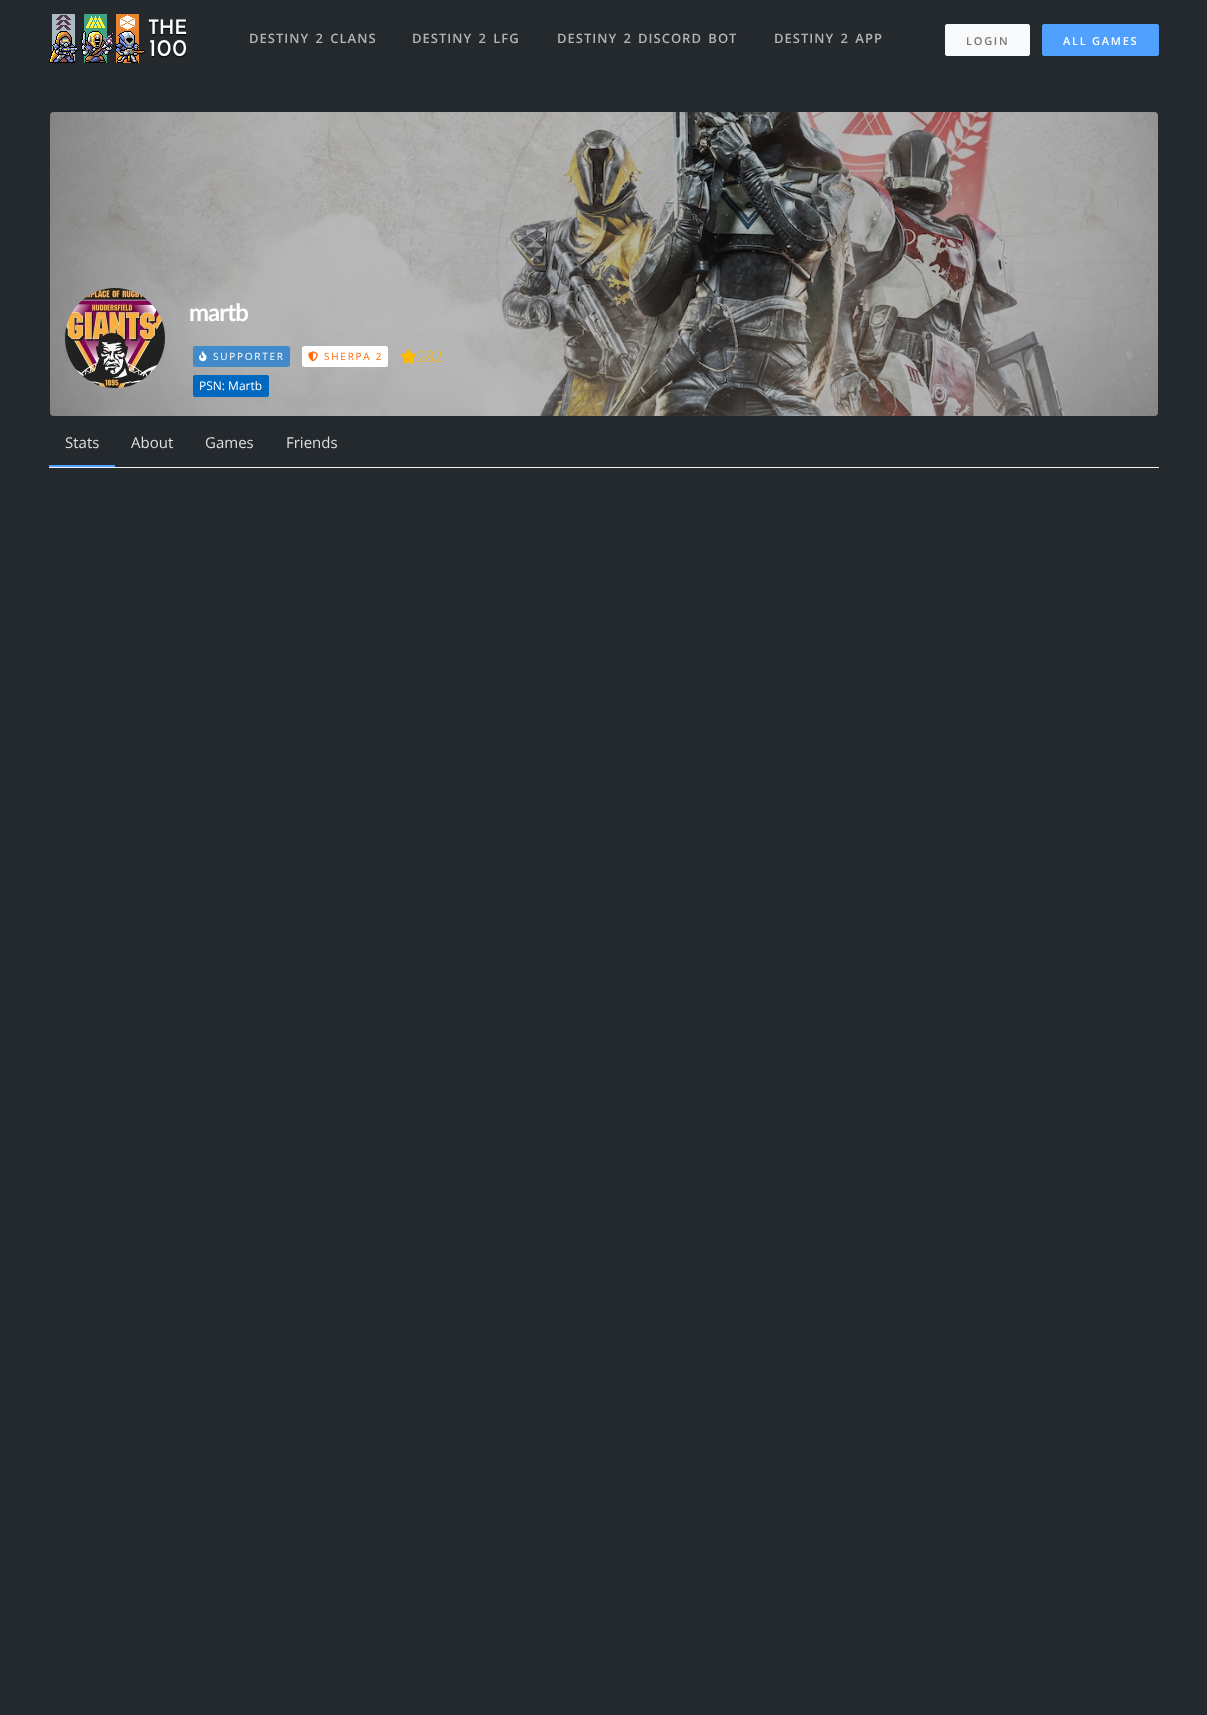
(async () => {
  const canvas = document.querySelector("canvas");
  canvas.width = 1207;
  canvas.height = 1715;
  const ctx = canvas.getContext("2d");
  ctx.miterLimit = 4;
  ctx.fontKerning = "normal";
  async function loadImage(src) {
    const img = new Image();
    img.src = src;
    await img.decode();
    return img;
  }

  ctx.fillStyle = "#24292e";
  ctx.fillRect(0, 0, 1207, 1715);
  ctx.drawImage(await loadImage("img/1.png"), 49, 14, 138, 49);
  ctx.fillStyle = "#f8f9fa";
  ctx.beginPath();
  ctx.roundRect(945.5, 24.5, 84, 31, 1.5);
  ctx.fill();
  ctx.strokeStyle = "#f8f9fa";
  ctx.stroke();
  ctx.fillStyle = "#50a1ff";
  ctx.beginPath();
  ctx.roundRect(1042.5, 24.5, 116, 31, 1.5);
  ctx.fill();
  ctx.strokeStyle = "#50a1ff";
  ctx.stroke();
  ctx.drawImage(await loadImage("img/2.png"), 50, 112, 1108, 304);
  ctx.fillStyle = "rgba(25, 25, 25, 0.3)";
  ctx.beginPath();
  ctx.roundRect(50, 112, 1108, 304, 4);
  ctx.fill();
  ctx.drawImage(await loadImage("img/3.png"), 65, 288, 100, 100);
  ctx.fillStyle = "#428bca";
  ctx.beginPath();
  ctx.roundRect(193, 346, 97, 21, 2.5);
  ctx.fill();
  ctx.drawImage(await loadImage("img/4.png"), 199, 351, 8, 11);
  ctx.fillStyle = "#ffffff";
  ctx.beginPath();
  ctx.roundRect(302, 346, 86, 21, 2.5);
  ctx.fill();
  ctx.drawImage(await loadImage("img/5.png"), 308, 351, 10, 11);
  ctx.drawImage(await loadImage("img/6.png"), 400, 348, 17, 16);
  ctx.fillStyle = "#0068bf";
  ctx.beginPath();
  ctx.roundRect(193, 375, 76, 22, 2);
  ctx.fill();
  ctx.fillStyle = "#f1f2f3";
  ctx.fillRect(49, 467, 1110, 1);
  ctx.fillStyle = "#50a1ff";
  ctx.fillRect(49, 465, 66, 2);
  ctx.letterSpacing = "1px";
  ctx.wordSpacing = "2px";
  ctx.font = "600 13px Open Sans";
  ctx.fillStyle = "#b2b4b6";
  for (const [text, x, y] of [
    ["DESTINY 2 CLANS", 249, 43],
    ["DESTINY 2 LFG", 412, 43],
    ["DESTINY 2", 557, 43],
    ["DISCORD BOT", 638, 43],
    ["DESTINY 2 APP", 774, 43],
  ]) {
    ctx.fillText(text, x, y);
  }
  ctx.letterSpacing = "1.75px";
  ctx.wordSpacing = "0px";
  ctx.font = "600 11px Open Sans";
  ctx.fillStyle = "#757575";
  ctx.fillText("LOGIN", 966, 45);
  ctx.fillStyle = "#ffffff";
  ctx.fillText("ALL GAMES", 1063, 45);
  ctx.letterSpacing = "-1px";
  ctx.font = "bold 24px Lato";
  ctx.fillText("martb", 189, 321);
  ctx.letterSpacing = "1.75px";
  ctx.font = "10px Open Sans";
  ctx.fillText("SUPPORTER", 213, 360);
  ctx.fillStyle = "#ff6d10";
  ctx.fillText("SHERPA 2", 324, 360);
  ctx.letterSpacing = "0px";
  ctx.font = "300 15px Open Sans";
  ctx.fillStyle = "#ffba00";
  ctx.fillText("282", 417, 362);
  ctx.font = "12px Open Sans";
  ctx.fillStyle = "#ffffff";
  ctx.fillText("PSN: Martb", 199, 390);
  ctx.font = "15px Open Sans";
  ctx.fillStyle = "#dedfe0";
  for (const [text, x, y] of [
    ["Stats", 65, 448],
    ["About", 131, 448],
    ["Games", 205, 448],
    ["Friends", 286, 448],
  ]) {
    ctx.fillText(text, x, y);
  }
})();
